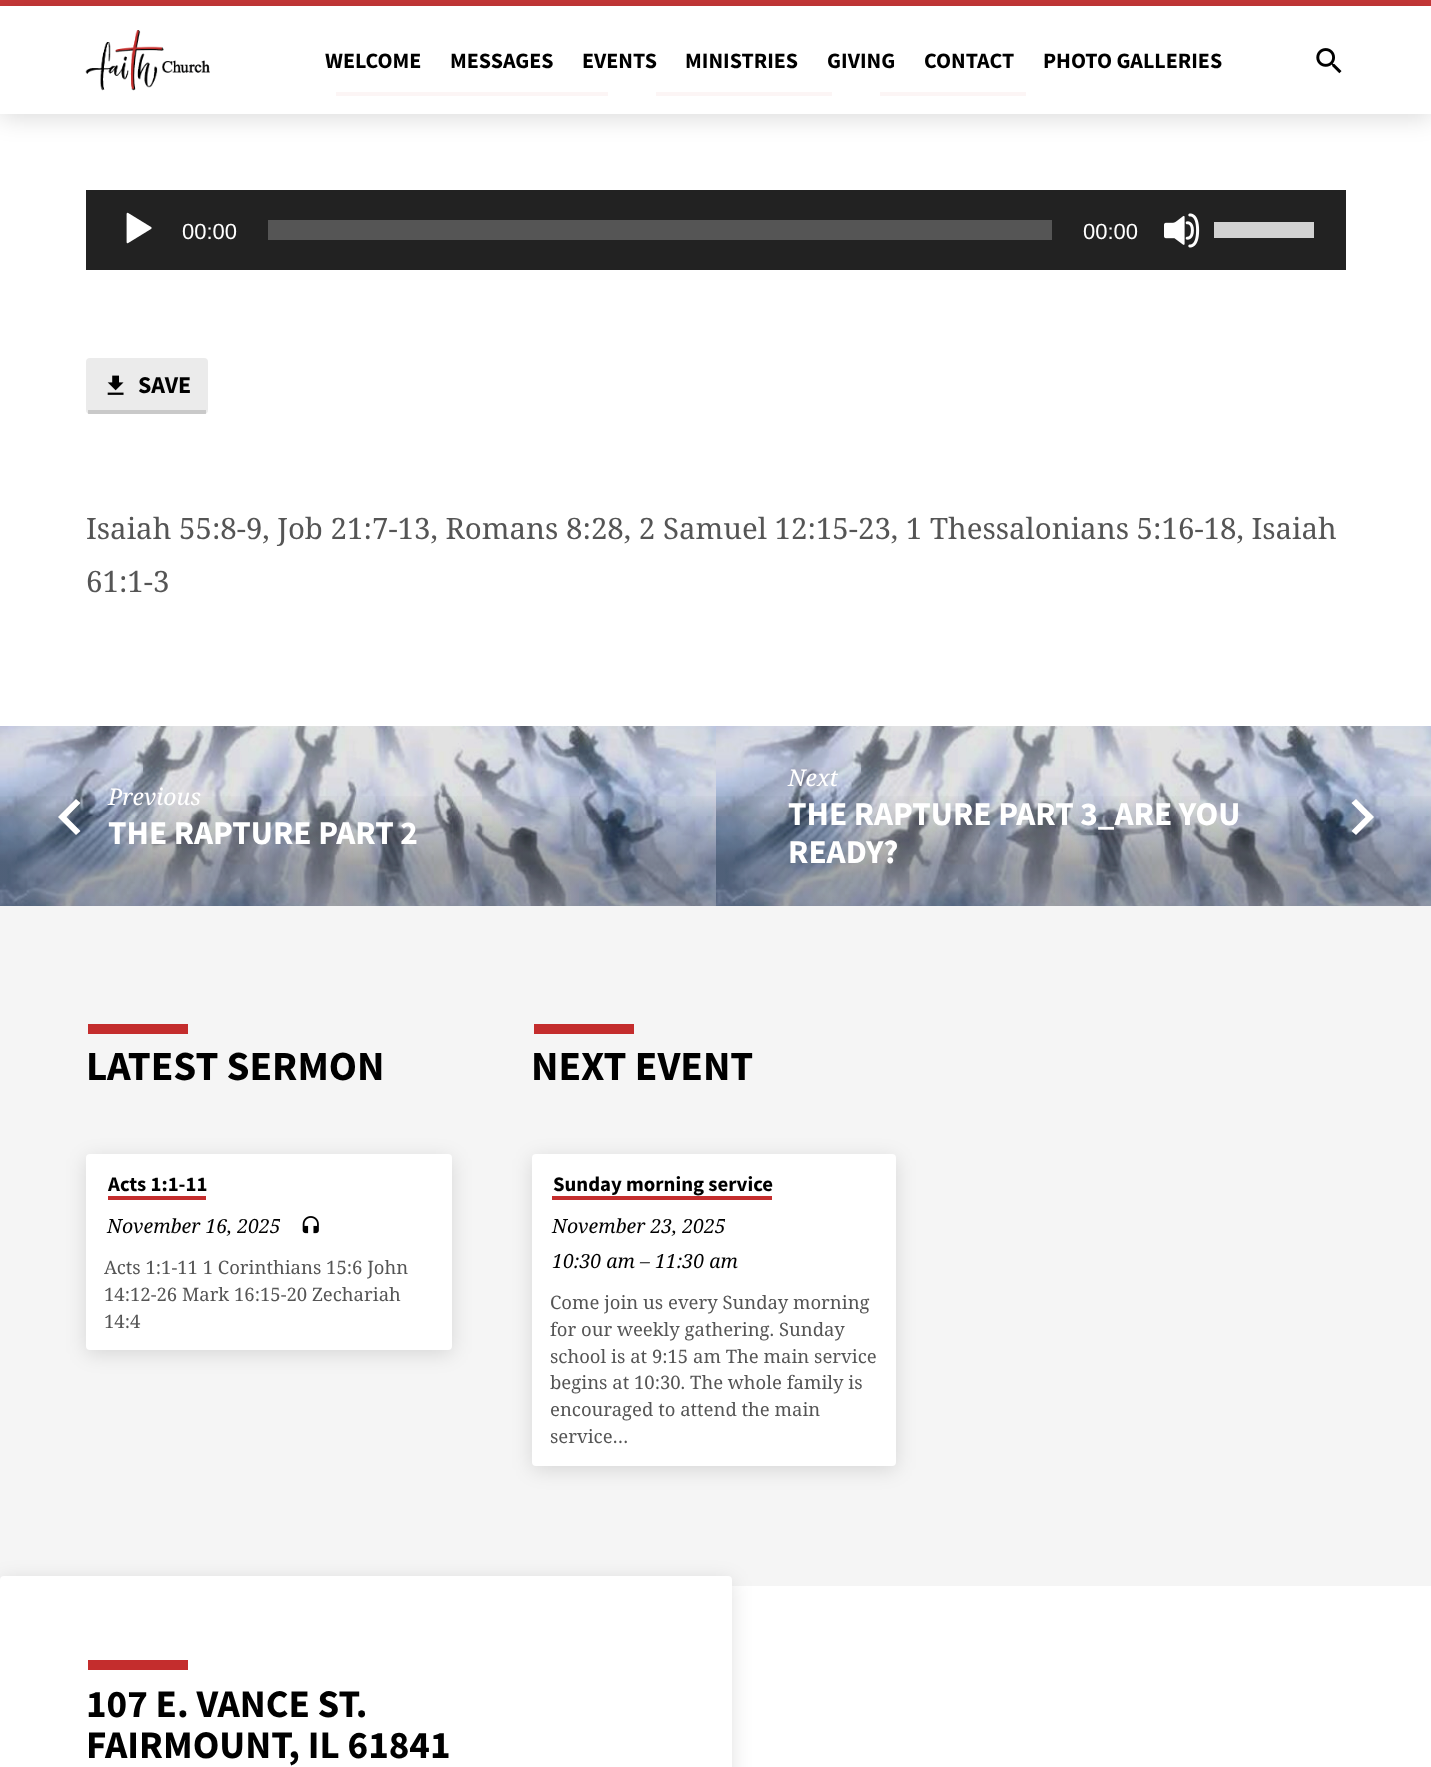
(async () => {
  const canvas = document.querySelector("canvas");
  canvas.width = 1431;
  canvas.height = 1767;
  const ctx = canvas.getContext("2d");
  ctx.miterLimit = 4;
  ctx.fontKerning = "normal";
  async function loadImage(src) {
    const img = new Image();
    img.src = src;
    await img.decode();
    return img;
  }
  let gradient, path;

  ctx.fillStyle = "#ffffff";
  ctx.fillRect(0, 0, 1431, 1767);
  for (const [x, y, w, h, color] of [
    [0, 0, 1431, 6, "#c73838"],
    [336, 92, 272, 4, "#fcf5f5"],
    [656, 92, 176, 4, "#fcf5f5"],
    [880, 92, 146, 4, "#fcf5f5"],
  ]) {
    ctx.fillStyle = color;
    ctx.fillRect(x, y, w, h);
  }
  ctx.save();
  path = new Path2D("M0 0H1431V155H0ZM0 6H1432V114H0Z");
  ctx.clip(path, "evenodd");
  ctx.fillStyle = "rgba(0, 0, 0, 0.14)";
  ctx.filter = "blur(12px)";
  ctx.beginPath();
  ctx.rect(0, 10, 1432, 108);
  ctx.fill();
  ctx.filter = "none";
  ctx.restore();
  ctx.drawImage(await loadImage("img/1.png"), 85, 30, 125, 61);
  ctx.drawImage(await loadImage("img/2.png"), 1316, 48, 26, 26);
  ctx.fillStyle = "#222222";
  ctx.fillRect(86, 190, 1260, 80);
  ctx.drawImage(await loadImage("img/3.png"), 126, 212, 26, 32);
  ctx.fillStyle = "#555555";
  ctx.fillRect(268, 220, 784, 20);
  ctx.drawImage(await loadImage("img/4.png"), 1164, 213, 36, 35);
  ctx.fillStyle = "#d2d2d2";
  ctx.fillRect(1214, 222, 100, 16);
  ctx.fillStyle = "#ebebeb";
  ctx.beginPath();
  ctx.roundRect(86, 358, 122, 56, 4);
  ctx.fill();
  ctx.fillStyle = "rgba(50, 50, 50, 0.18)";
  ctx.fillRect(88, 410, 118, 4);
  ctx.drawImage(await loadImage("img/5.png"), 107, 375, 17, 20);
  ctx.drawImage(await loadImage("img/6.png"), 0, 726, 716, 180);
  gradient = ctx.createLinearGradient(361, 726, 361, 906);
  gradient.addColorStop(0, "rgba(6, 6, 6, 0)");
  gradient.addColorStop(0.36, "rgba(6, 6, 6, 0)");
  gradient.addColorStop(0.76, "rgba(6, 6, 6, 0.28)");
  gradient.addColorStop(1, "rgba(6, 6, 6, 0.28)");
  ctx.fillStyle = gradient;
  ctx.fillRect(0, 796, 716, 110);
  ctx.fillStyle = "#ffffff";
  path = new Path2D("M80.5 831L66.5 817L80.5 803L76 799L58 817L76 835Z");
  ctx.fill(path);
  ctx.drawImage(await loadImage("img/7.png"), 716, 726, 715, 180);
  gradient = ctx.createLinearGradient(1079, 726, 1079, 906);
  gradient.addColorStop(0, "rgba(6, 6, 6, 0)");
  gradient.addColorStop(0.36, "rgba(6, 6, 6, 0)");
  gradient.addColorStop(0.76, "rgba(6, 6, 6, 0.28)");
  gradient.addColorStop(1, "rgba(6, 6, 6, 0.28)");
  ctx.fillStyle = gradient;
  ctx.fillRect(716, 796, 715, 110);
  ctx.fillStyle = "#ffffff";
  path = new Path2D("M1351.5 831L1365.5 817L1351.5 803L1356 799L1374 817L1356 835Z");
  ctx.fill(path);
  ctx.fillStyle = "#f5f5f5";
  ctx.fillRect(0, 906, 1431, 680);
  ctx.fillStyle = "#c42d2d";
  ctx.fillRect(88, 1024, 100, 10);
  ctx.fillStyle = "rgba(0, 0, 0, 0.12)";
  ctx.filter = "blur(10px)";
  ctx.beginPath();
  ctx.roundRect(86, 1158, 366, 196, 4);
  ctx.fill();
  ctx.filter = "none";
  ctx.fillStyle = "#ffffff";
  ctx.beginPath();
  ctx.roundRect(86, 1154, 366, 196, 4);
  ctx.fill();
  ctx.fillStyle = "#c42d2d";
  ctx.fillRect(108, 1196, 98, 4);
  ctx.drawImage(await loadImage("img/8.png"), 302, 1216, 17, 18);
  ctx.fillRect(534, 1024, 100, 10);
  ctx.fillStyle = "rgba(0, 0, 0, 0.12)";
  ctx.filter = "blur(10px)";
  ctx.beginPath();
  ctx.roundRect(532, 1158, 364, 312, 4);
  ctx.fill();
  ctx.filter = "none";
  ctx.fillStyle = "#ffffff";
  ctx.beginPath();
  ctx.roundRect(532, 1154, 364, 312, 4);
  ctx.fill();
  ctx.fillStyle = "#c42d2d";
  ctx.fillRect(552, 1196, 220, 4);
  ctx.fillStyle = "rgba(0, 0, 0, 0.12)";
  ctx.filter = "blur(10px)";
  ctx.beginPath();
  ctx.roundRect(0, 1580, 732, 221, 4);
  ctx.fill();
  ctx.filter = "none";
  ctx.fillStyle = "#ffffff";
  ctx.beginPath();
  ctx.roundRect(0, 1576, 732, 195, 4);
  ctx.fill();
  ctx.fillStyle = "#c42d2d";
  ctx.fillRect(88, 1660, 100, 10);
  ctx.font = "bold 22px Source Sans Pro";
  ctx.fillStyle = "#000000";
  for (const [text, x, y] of [
    ["WELCOME", 325, 68],
    ["MESSAGES", 450, 68],
    ["EVENTS", 582, 68],
    ["MINISTRIES", 685, 68],
    ["GIVING", 827, 68],
    ["CONTACT", 924, 68],
    ["PHOTO GALLERIES", 1043, 68],
  ]) {
    ctx.fillText(text, x, y);
  }
  ctx.font = "22px Liberation Sans";
  ctx.fillStyle = "#ffffff";
  ctx.fillText("00:00", 182, 239);
  ctx.fillText("00:00", 1083, 239);
  ctx.font = "bold 24px Source Sans Pro";
  ctx.fillStyle = "#000000";
  ctx.fillText("SAVE", 138, 393);
  ctx.font = "29.45px Noto Serif";
  ctx.fillStyle = "#555555";
  ctx.fillText("Isaiah 55:8-9, Job 21:7-13, Romans 8:28, 2 Samuel 12:15-23, 1 Thessalonians 5:16-18, Isaiah", 86, 539);
  ctx.fillText("61:1-3", 86, 592);
  ctx.font = "italic 23px Noto Serif";
  ctx.fillStyle = "#ffffff";
  ctx.fillText("Previous", 108, 805);
  ctx.font = "bold 33.25px Source Sans Pro";
  ctx.fillText("THE RAPTURE PART 2", 108, 844);
  ctx.font = "italic 23px Noto Serif";
  ctx.fillText("Next", 788, 786);
  ctx.font = "bold 33.25px Source Sans Pro";
  ctx.fillText("THE RAPTURE PART 3_ARE YOU", 788, 825);
  ctx.fillText("READY?", 788, 863);
  ctx.font = "bold 41.25px Source Sans Pro";
  ctx.fillStyle = "#000000";
  ctx.fillText("LATEST SERMON", 86, 1080);
  ctx.font = "bold 20.75px Source Sans Pro";
  ctx.fillText("Acts 1:1-11", 108, 1191);
  ctx.font = "italic 19.5px Noto Serif";
  ctx.fillText("November 16, 2025", 107, 1233);
  ctx.font = "18.5px Noto Serif";
  ctx.fillStyle = "#555555";
  for (const [text, x, y] of [
    ["Acts 1:1-11 1 Corinthians 15:6 John", 104, 1274],
    ["14:12-26 Mark 16:15-20 Zechariah", 104, 1301],
    ["14:4", 104, 1328],
  ]) {
    ctx.fillText(text, x, y);
  }
  ctx.font = "bold 41.25px Source Sans Pro";
  ctx.fillStyle = "#000000";
  ctx.fillText("NEXT EVENT", 531, 1080);
  ctx.font = "bold 20.75px Source Sans Pro";
  ctx.fillText("Sunday morning service", 553, 1191);
  ctx.font = "italic 19.5px Noto Serif";
  ctx.fillText("November 23, 2025", 552, 1233);
  ctx.fillText("10:30 am – 11:30 am", 552, 1268);
  ctx.font = "18.5px Noto Serif";
  ctx.fillStyle = "#555555";
  for (const [text, x, y] of [
    ["Come join us every Sunday morning", 550, 1309],
    ["for our weekly gathering. Sunday", 550, 1336],
    ["school is at 9:15 am The main service", 550, 1363],
    ["begins at 10:30. The whole family is", 550, 1389],
    ["encouraged to attend the main", 550, 1416],
    ["service…", 550, 1443],
  ]) {
    ctx.fillText(text, x, y);
  }
  ctx.font = "bold 39px Source Sans Pro";
  ctx.fillStyle = "#000000";
  ctx.fillText("107 E. VANCE ST.", 86, 1717);
  ctx.fillText("FAIRMOUNT, IL 61841", 86, 1758);
})();
